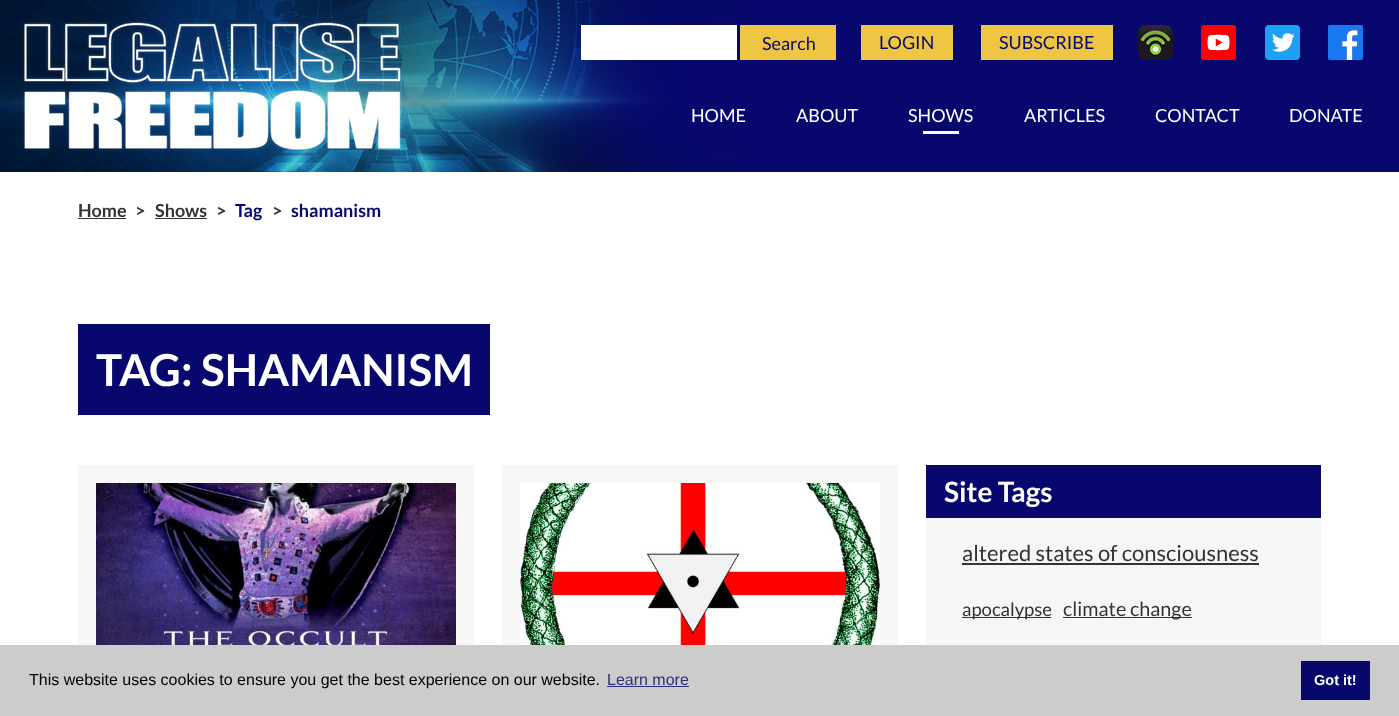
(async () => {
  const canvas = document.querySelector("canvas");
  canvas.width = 1399;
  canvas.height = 716;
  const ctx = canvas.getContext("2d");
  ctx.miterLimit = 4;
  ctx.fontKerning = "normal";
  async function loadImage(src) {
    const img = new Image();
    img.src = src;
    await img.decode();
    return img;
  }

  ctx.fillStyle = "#ffffff";
  ctx.fillRect(0, 0, 1399, 716);
  ctx.fillStyle = "#07076d";
  ctx.fillRect(738, 0, 661, 172);
  ctx.drawImage(await loadImage("img/1.png"), 0, 0, 738, 172);
  for (const [x, y, w, h, color] of [
    [581, 25, 156, 35, "#ffffff"],
    [740, 25, 96, 35, "#eec643"],
    [861, 25, 92, 35, "#eec643"],
    [981, 25, 132, 35, "#eec643"],
  ]) {
    ctx.fillStyle = color;
    ctx.fillRect(x, y, w, h);
  }
  ctx.drawImage(await loadImage("img/2.png"), 1138, 25, 35, 35);
  ctx.drawImage(await loadImage("img/3.png"), 1201, 25, 35, 35);
  ctx.drawImage(await loadImage("img/4.png"), 1265, 25, 35, 35);
  ctx.drawImage(await loadImage("img/5.png"), 1328, 25, 35, 35);
  for (const [x, y, w, h, color] of [
    [923, 131, 36, 3, "#ffffff"],
    [78, 218, 48, 1, "#333333"],
    [155, 218, 52, 1, "#333333"],
    [78, 324, 412, 91, "#07076d"],
    [78, 465, 396, 180, "#f6f6f6"],
  ]) {
    ctx.fillStyle = color;
    ctx.fillRect(x, y, w, h);
  }
  ctx.drawImage(await loadImage("img/6.png"), 96, 483, 360, 162);
  ctx.fillRect(502, 465, 396, 180);
  ctx.drawImage(await loadImage("img/7.png"), 520, 483, 360, 162);
  for (const [x, y, w, h, color] of [
    [926, 518, 395, 127, "#f6f6f6"],
    [926, 465, 395, 53, "#07076d"],
    [962, 563, 297, 2, "#333333"],
    [962, 617, 89, 1, "#333333"],
    [1063, 617, 129, 1, "#333333"],
    [0, 645, 1399, 71, "#cccccc"],
    [607, 686, 82, 1, "#2e2e80"],
    [1301, 661, 69, 39, "#07076d"],
  ]) {
    ctx.fillStyle = color;
    ctx.fillRect(x, y, w, h);
  }
  ctx.font = "18px Lato";
  for (const [text, x, y] of [
    ["Search", 762, 50],
    ["LOGIN", 879, 49],
    ["SUBSCRIBE", 999, 49],
  ]) {
    ctx.fillText(text, x, y);
  }
  ctx.fillStyle = "#ffffff";
  for (const [text, x, y] of [
    ["HOME", 691, 122],
    ["ABOUT", 796, 122],
    ["SHOWS", 908, 122],
    ["ARTICLES", 1024, 122],
    ["CONTACT", 1155, 122],
    ["DONATE", 1289, 122],
  ]) {
    ctx.fillText(text, x, y);
  }
  ctx.font = "bold 18px Lato";
  ctx.fillStyle = "#333333";
  for (const [text, x, y] of [
    ["Home", 78, 217],
    [">", 135, 217],
    ["Shows", 155, 217],
    [">", 216, 217],
  ]) {
    ctx.fillText(text, x, y);
  }
  ctx.fillStyle = "#07076d";
  ctx.fillText("Tag", 235, 217);
  ctx.fillStyle = "#333333";
  ctx.fillText(">", 272, 217);
  ctx.fillStyle = "#07076d";
  ctx.fillText("shamanism", 291, 217);
  ctx.font = "bold 44px Lato";
  ctx.fillStyle = "#ffffff";
  ctx.fillText("TAG: SHAMANISM", 96, 386);
  ctx.font = "bold 28px Lato";
  ctx.fillText("Site Tags", 944, 502);
  ctx.font = "22px Lato";
  ctx.fillStyle = "#333333";
  ctx.fillText("altered states of consciousness", 962, 561);
  ctx.font = "18.5px Lato";
  ctx.fillText("apocalypse", 962, 616);
  ctx.font = "19.75px Lato";
  ctx.fillText("climate change", 1063, 616);
  ctx.font = "16px Liberation Sans";
  ctx.fillStyle = "#000000";
  ctx.fillText("This website uses cookies to ensure you get the best experience on our website.", 29, 685);
  ctx.fillStyle = "#2e2e80";
  ctx.fillText("Learn more", 607, 685);
  ctx.font = "bold 14.5px Liberation Sans";
  ctx.fillStyle = "#ffffff";
  ctx.fillText("Got it!", 1314, 685);
})();
